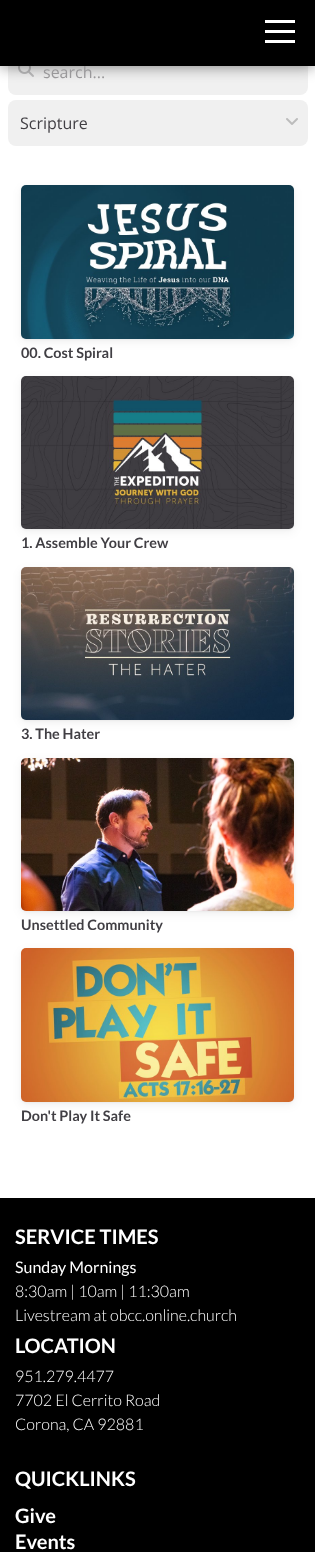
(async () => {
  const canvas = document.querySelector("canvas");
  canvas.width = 315;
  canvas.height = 1552;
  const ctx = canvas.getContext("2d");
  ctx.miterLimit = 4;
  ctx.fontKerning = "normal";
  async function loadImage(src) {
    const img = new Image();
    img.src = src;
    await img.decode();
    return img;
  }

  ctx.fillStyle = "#ffffff";
  ctx.fillRect(0, 0, 315, 1552);
  ctx.fillStyle = "#f0f0f0";
  ctx.beginPath();
  ctx.roundRect(8, 49, 300, 46, 8);
  ctx.fill();
  ctx.drawImage(await loadImage("img/1.png"), 18, 66, 16, 11);
  ctx.fillStyle = "rgba(0, 0, 0, 0.5)";
  ctx.filter = "blur(7.5px)";
  ctx.beginPath();
  ctx.rect(0, 0, 315, 66);
  ctx.fill();
  ctx.filter = "none";
  ctx.fillStyle = "#f0f0f0";
  ctx.beginPath();
  ctx.roundRect(8, 100, 300, 46, 8);
  ctx.fill();
  ctx.drawImage(await loadImage("img/2.png"), 286, 118, 12, 7);
  ctx.fillStyle = "rgba(0, 0, 0, 0.04)";
  ctx.filter = "blur(1px)";
  ctx.beginPath();
  ctx.roundRect(21, 186, 273, 154, 5);
  ctx.fill();
  ctx.filter = "none";
  ctx.fillStyle = "rgba(0, 0, 0, 0.06)";
  ctx.filter = "blur(5px)";
  ctx.beginPath();
  ctx.roundRect(21, 188, 273, 154, 5);
  ctx.fill();
  ctx.filter = "none";
  ctx.drawImage(await loadImage("img/3.png"), 21, 185, 273, 154);
  ctx.fillStyle = "rgba(0, 0, 0, 0.04)";
  ctx.filter = "blur(1px)";
  ctx.beginPath();
  ctx.roundRect(21, 377, 273, 153, 5);
  ctx.fill();
  ctx.filter = "none";
  ctx.fillStyle = "rgba(0, 0, 0, 0.06)";
  ctx.filter = "blur(5px)";
  ctx.beginPath();
  ctx.roundRect(21, 379, 273, 153, 5);
  ctx.fill();
  ctx.filter = "none";
  ctx.drawImage(await loadImage("img/4.png"), 21, 376, 273, 153);
  ctx.fillStyle = "rgba(0, 0, 0, 0.04)";
  ctx.filter = "blur(1px)";
  ctx.beginPath();
  ctx.roundRect(21, 568, 273, 153, 5);
  ctx.fill();
  ctx.filter = "none";
  ctx.fillStyle = "rgba(0, 0, 0, 0.06)";
  ctx.filter = "blur(5px)";
  ctx.beginPath();
  ctx.roundRect(21, 570, 273, 153, 5);
  ctx.fill();
  ctx.filter = "none";
  ctx.drawImage(await loadImage("img/5.png"), 21, 567, 273, 153);
  ctx.fillStyle = "rgba(0, 0, 0, 0.04)";
  ctx.filter = "blur(1px)";
  ctx.beginPath();
  ctx.roundRect(21, 759, 273, 153, 5);
  ctx.fill();
  ctx.filter = "none";
  ctx.fillStyle = "rgba(0, 0, 0, 0.06)";
  ctx.filter = "blur(5px)";
  ctx.beginPath();
  ctx.roundRect(21, 761, 273, 153, 5);
  ctx.fill();
  ctx.filter = "none";
  ctx.drawImage(await loadImage("img/6.png"), 21, 758, 273, 153);
  ctx.fillStyle = "rgba(0, 0, 0, 0.04)";
  ctx.filter = "blur(1px)";
  ctx.beginPath();
  ctx.roundRect(21, 949, 273, 154, 5);
  ctx.fill();
  ctx.filter = "none";
  ctx.fillStyle = "rgba(0, 0, 0, 0.06)";
  ctx.filter = "blur(5px)";
  ctx.beginPath();
  ctx.roundRect(21, 951, 273, 154, 5);
  ctx.fill();
  ctx.filter = "none";
  ctx.drawImage(await loadImage("img/7.png"), 21, 948, 273, 154);
  ctx.fillStyle = "#000000";
  ctx.fillRect(0, 1198, 315, 354);
  ctx.font = "16px Open Sans";
  ctx.fillStyle = "#99989a";
  ctx.fillText("search...", 43, 78);
  for (const [x, y, w, h, color] of [
    [0, 0, 315, 66, "#000000"],
    [265, 40, 30, 3, "#ffffff"],
    [265, 30, 30, 3, "#ffffff"],
    [265, 20, 30, 3, "#ffffff"],
  ]) {
    ctx.fillStyle = color;
    ctx.fillRect(x, y, w, h);
  }
  ctx.fillStyle = "#413f44";
  ctx.fillText("Scripture", 20, 129);
  ctx.font = "bold 14.4px Lato";
  for (const [text, x, y] of [
    ["00. Cost Spiral", 21, 358],
    ["1. Assemble Your Crew", 21, 548],
    ["3. The Hater", 21, 739],
    ["Unsettled Community", 21, 930],
    ["Don't Play It Safe", 21, 1121],
  ]) {
    ctx.fillText(text, x, y);
  }
  ctx.font = "bold 20px Lato";
  ctx.fillStyle = "#ffffff";
  ctx.fillText("SERVICE TIMES", 15, 1244);
  ctx.font = "16px Lato";
  ctx.fillText("Sunday Mornings", 15, 1273);
  ctx.font = "300 16px Lato";
  ctx.fillText("8:30am | 10am | 11:30am", 15, 1297);
  ctx.fillText("Livestream at obcc.online.church", 15, 1321);
  ctx.font = "bold 20px Lato";
  ctx.fillText("LOCATION", 15, 1353);
  ctx.font = "300 16px Lato";
  for (const [text, x, y] of [
    ["951.279.4477", 15, 1382],
    ["7702 El Cerrito Road", 15, 1406],
    ["Corona, CA 92881", 15, 1430],
  ]) {
    ctx.fillText(text, x, y);
  }
  ctx.font = "bold 20px Lato";
  for (const [text, x, y] of [
    ["QUICKLINKS", 15, 1486],
    ["Give", 15, 1523],
    ["Events", 15, 1549],
  ]) {
    ctx.fillText(text, x, y);
  }
})();
